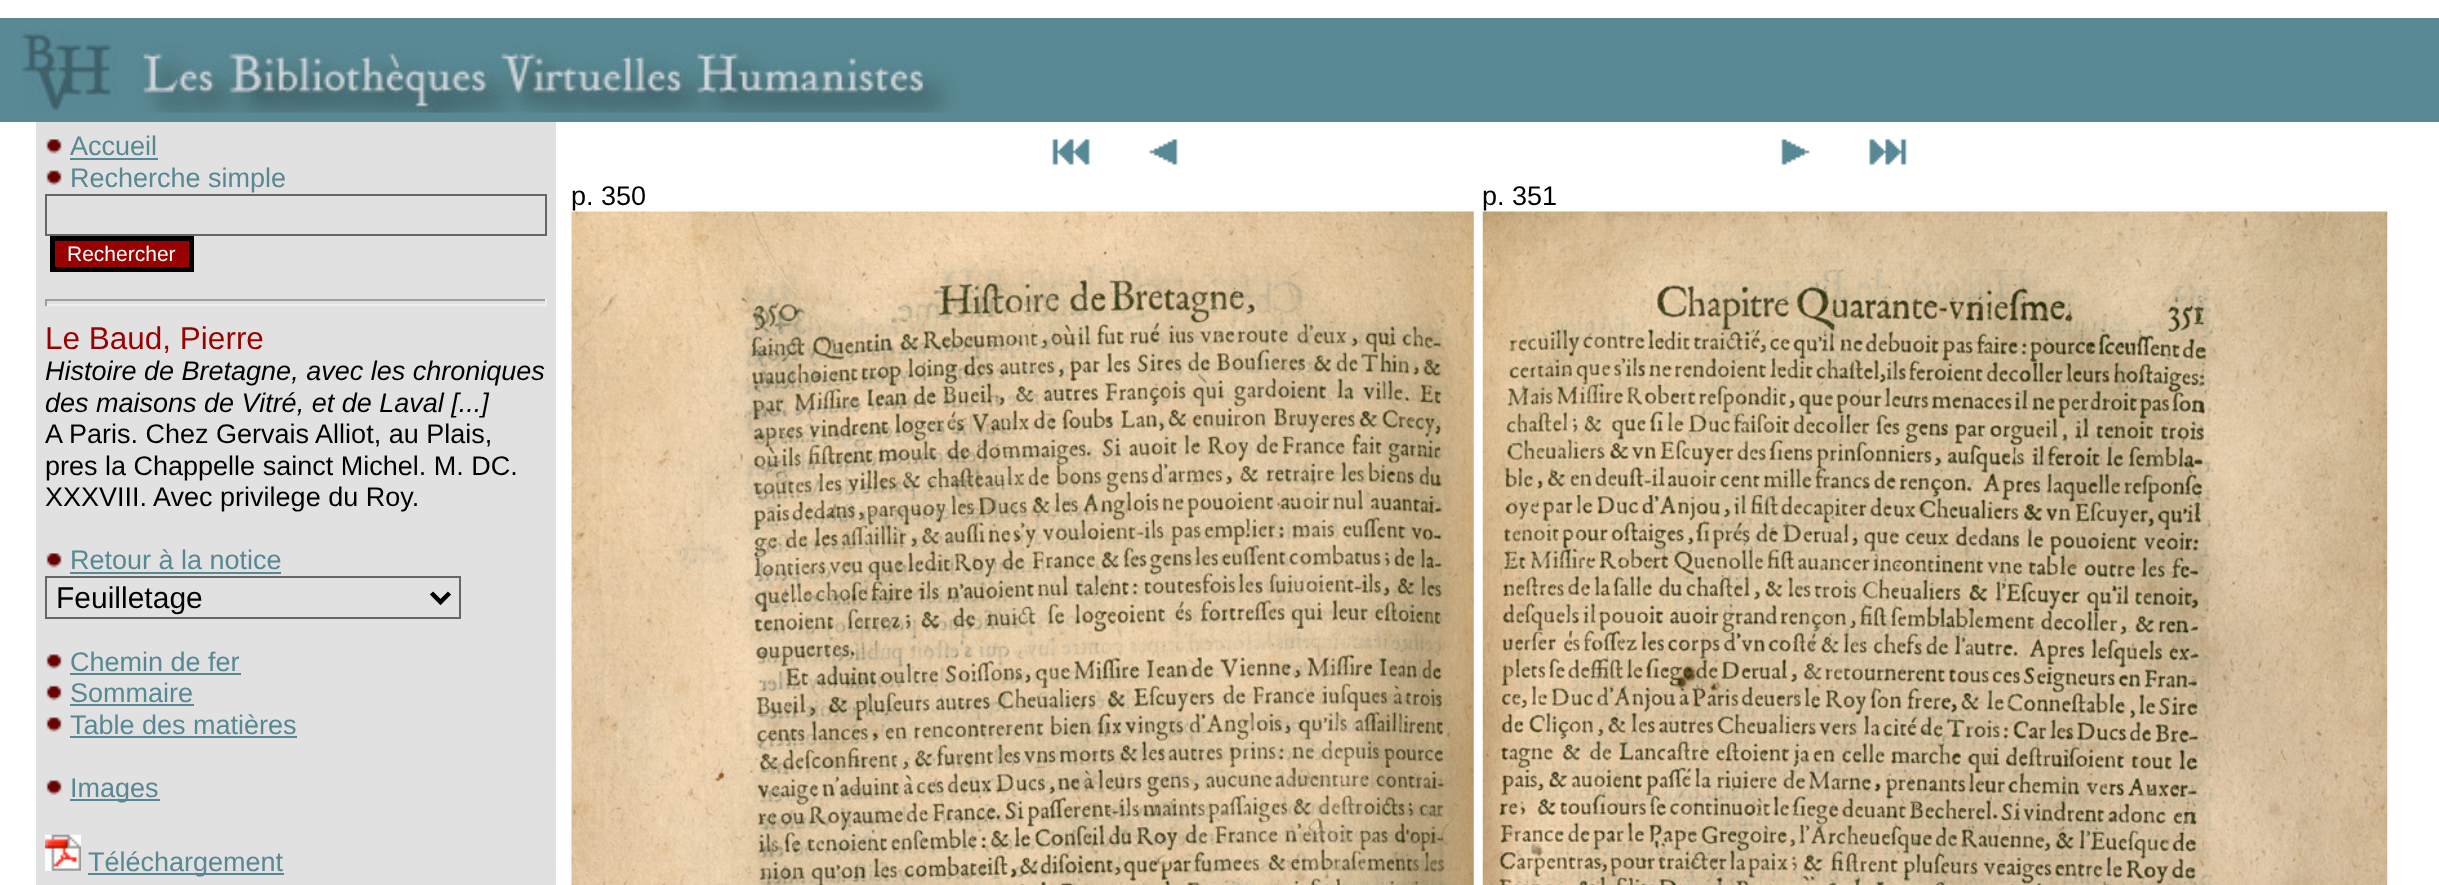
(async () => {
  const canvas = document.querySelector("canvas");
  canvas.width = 2439;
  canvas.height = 885;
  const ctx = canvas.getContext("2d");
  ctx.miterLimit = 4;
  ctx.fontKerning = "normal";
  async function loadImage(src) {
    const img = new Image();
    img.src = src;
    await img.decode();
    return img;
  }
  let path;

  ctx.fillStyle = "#ffffff";
  ctx.fillRect(0, 0, 2439, 885);
  ctx.fillStyle = "#598995";
  ctx.fillRect(0, 18, 2439, 104);
  ctx.drawImage(await loadImage("img/1.png"), 21, 30, 939, 83);
  ctx.fillStyle = "#e1e1e1";
  ctx.fillRect(36, 122, 520, 763);
  ctx.drawImage(await loadImage("img/2.png"), 46, 139, 17, 16);
  ctx.fillStyle = "#588893";
  ctx.fillRect(70, 158, 88, 2);
  ctx.drawImage(await loadImage("img/3.png"), 46, 170, 16, 16);
  ctx.strokeStyle = "#666666";
  ctx.lineWidth = 2;
  ctx.strokeRect(46, 195, 500, 40);
  ctx.fillStyle = "#990000";
  ctx.beginPath();
  ctx.rect(52.5, 238.5, 139, 31);
  ctx.fill();
  ctx.strokeStyle = "#000000";
  ctx.lineWidth = 5;
  ctx.stroke();
  for (const [x, y, w, h, color] of [
    [45, 299, 502, 2, "#9f9f9f"],
    [545, 299, 2, 7, "#eeeeee"],
    [45, 304, 502, 2, "#eeeeee"],
    [45, 299, 2, 7, "#9f9f9f"],
  ]) {
    ctx.fillStyle = color;
    ctx.fillRect(x, y, w, h);
  }
  ctx.drawImage(await loadImage("img/2.png"), 46, 553, 17, 16);
  ctx.fillStyle = "#588893";
  ctx.fillRect(70, 572, 211, 2);
  ctx.strokeStyle = "#666666";
  ctx.lineWidth = 2;
  ctx.strokeRect(46, 577, 414, 41);
  path = new Path2D("M431.5 593L440.5 602L449.5 593");
  ctx.strokeStyle = "#000000";
  ctx.lineWidth = 4.5;
  ctx.stroke(path);
  ctx.drawImage(await loadImage("img/4.png"), 46, 654, 17, 16);
  ctx.fillRect(70, 673, 171, 2);
  ctx.drawImage(await loadImage("img/5.png"), 46, 685, 17, 17);
  ctx.fillRect(70, 704, 124, 2);
  ctx.drawImage(await loadImage("img/4.png"), 46, 717, 17, 16);
  ctx.fillRect(70, 736, 227, 2);
  ctx.drawImage(await loadImage("img/6.png"), 46, 780, 17, 16);
  ctx.fillRect(70, 799, 90, 2);
  ctx.drawImage(await loadImage("img/7.png"), 45, 834, 36, 37);
  ctx.fillRect(88, 873, 196, 2);
  ctx.drawImage(await loadImage("img/8.png"), 1052, 139, 38, 26);
  ctx.drawImage(await loadImage("img/9.png"), 1149, 139, 29, 26);
  ctx.drawImage(await loadImage("img/10.png"), 1781, 139, 29, 26);
  ctx.drawImage(await loadImage("img/11.png"), 1869, 139, 38, 26);
  ctx.drawImage(await loadImage("img/12.png"), 571, 211, 903, 674);
  ctx.drawImage(await loadImage("img/13.png"), 1482, 211, 906, 674);
  ctx.font = "27px Liberation Sans";
  ctx.fillText("Accueil", 70, 155);
  ctx.fillText("Recherche simple", 70, 187);
  ctx.font = "21px Liberation Sans";
  ctx.fillStyle = "#ffffff";
  ctx.fillText("Rechercher", 67, 261);
  ctx.font = "31.5px Liberation Sans";
  ctx.fillStyle = "#990000";
  ctx.fillText("Le Baud, Pierre", 45, 349);
  ctx.font = "italic 27px Liberation Sans";
  ctx.fillStyle = "#000000";
  ctx.fillText("Histoire de Bretagne, avec les chroniques", 45, 380);
  ctx.fillText("des maisons de Vitré, et de Laval [...]", 45, 412);
  ctx.font = "27px Liberation Sans";
  for (const [text, x, y] of [
    ["A Paris. Chez Gervais Alliot, au Plais,", 45, 443],
    ["pres la Chappelle sainct Michel. M. DC.", 45, 475],
    ["XXXVIII. Avec privilege du Roy.", 45, 506],
  ]) {
    ctx.fillText(text, x, y);
  }
  ctx.fillStyle = "#588893";
  ctx.fillText("Retour à la notice", 70, 569);
  ctx.font = "30px Liberation Sans";
  ctx.fillStyle = "#000000";
  ctx.fillText("Feuilletage", 56, 608);
  ctx.font = "27px Liberation Sans";
  ctx.fillStyle = "#588893";
  for (const [text, x, y] of [
    ["Chemin de fer", 70, 671],
    ["Sommaire", 70, 702],
    ["Table des matières", 70, 734],
    ["Images", 70, 797],
    ["Téléchargement", 88, 871],
  ]) {
    ctx.fillText(text, x, y);
  }
  ctx.fillStyle = "#000000";
  ctx.fillText("p. 350", 571, 205);
  ctx.fillText("p. 351", 1482, 205);
})();
